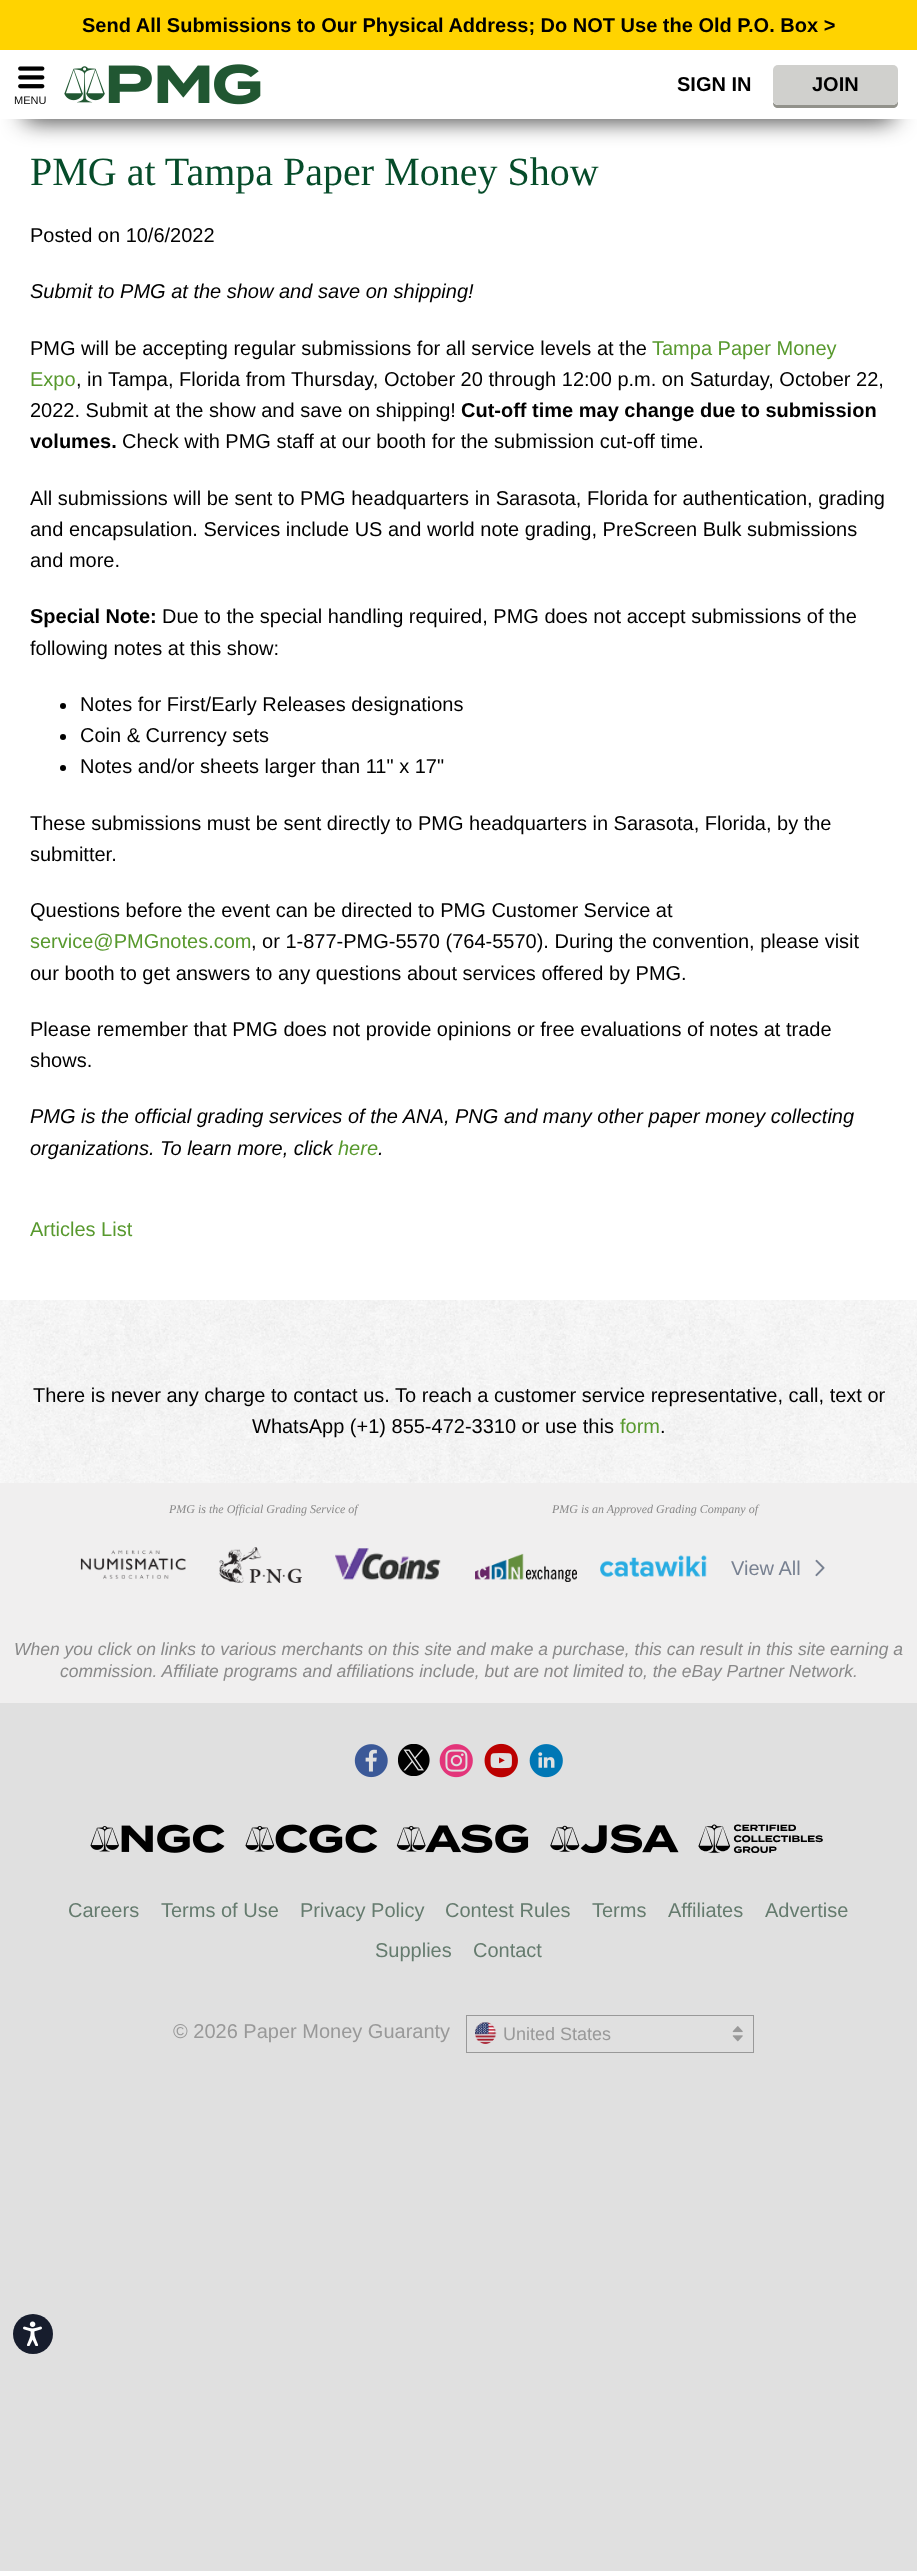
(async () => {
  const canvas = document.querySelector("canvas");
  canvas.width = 917;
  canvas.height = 2571;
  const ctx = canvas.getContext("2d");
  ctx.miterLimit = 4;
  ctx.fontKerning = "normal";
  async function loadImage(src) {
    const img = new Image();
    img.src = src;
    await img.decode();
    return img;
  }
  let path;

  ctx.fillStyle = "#e0e0e0";
  ctx.fillRect(0, 0, 917, 2571);
  ctx.fillStyle = "#ffd300";
  ctx.fillRect(0, 0, 917, 50);
  ctx.fillStyle = "#ffffff";
  ctx.fillRect(0, 119, 917, 1181);
  ctx.fillStyle = "#111111";
  ctx.filter = "blur(12.5px)";
  ctx.beginPath();
  ctx.rect(25, 100, 868, 19);
  ctx.fill();
  ctx.filter = "none";
  ctx.fillStyle = "#ffffff";
  ctx.fillRect(0, 50, 917, 69);
  ctx.drawImage(await loadImage("img/1.png"), 64, 64, 197, 41);
  ctx.fillStyle = "#92928b";
  path = new Path2D("M773 102V103C773 106 775 108 778 108H893C896 108 898 106 898 103V73V71V100C898 103 895 105 892 105H778C776 105 774 104 773 102Z");
  ctx.fill(path);
  ctx.fillStyle = "#d0d0cd";
  ctx.beginPath();
  ctx.roundRect(773, 65, 125, 40, 5);
  ctx.fill();
  ctx.drawImage(await loadImage("img/2.png"), 18, 66, 27, 23);
  ctx.drawImage(await loadImage("img/3.png"), 0, 1300, 917, 183);
  ctx.fillStyle = "#000000";
  ctx.beginPath();
  ctx.arc(63, 706, 3, 0, Math.PI * 2);
  ctx.fill();
  ctx.beginPath();
  ctx.arc(63, 737, 3, 0, Math.PI * 2);
  ctx.fill();
  ctx.beginPath();
  ctx.arc(63, 768, 3, 0, Math.PI * 2);
  ctx.fill();
  ctx.fillStyle = "#f0efef";
  ctx.fillRect(0, 1483, 917, 220);
  ctx.drawImage(await loadImage("img/4.png"), 80, 1550, 106, 29);
  ctx.drawImage(await loadImage("img/5.png"), 219, 1547, 83, 36);
  ctx.drawImage(await loadImage("img/6.png"), 335, 1548, 106, 32);
  ctx.drawImage(await loadImage("img/7.png"), 475, 1553, 102, 29);
  ctx.drawImage(await loadImage("img/8.png"), 600, 1555, 107, 22);
  ctx.drawImage(await loadImage("img/9.png"), 815, 1559, 10, 18);
  ctx.drawImage(await loadImage("img/10.png"), 354, 1744, 34, 34);
  ctx.drawImage(await loadImage("img/11.png"), 398, 1744, 32, 32);
  ctx.drawImage(await loadImage("img/12.png"), 439, 1744, 34, 34);
  ctx.drawImage(await loadImage("img/13.png"), 484, 1743, 34, 35);
  ctx.drawImage(await loadImage("img/14.png"), 529, 1744, 34, 34);
  ctx.drawImage(await loadImage("img/15.png"), 90, 1824, 135, 29);
  ctx.drawImage(await loadImage("img/16.png"), 245, 1824, 133, 29);
  ctx.drawImage(await loadImage("img/17.png"), 396, 1824, 133, 29);
  ctx.drawImage(await loadImage("img/18.png"), 550, 1824, 129, 30);
  ctx.drawImage(await loadImage("img/19.png"), 698, 1824, 125, 29);
  ctx.strokeStyle = "#999999";
  ctx.strokeRect(466.5, 2015.5, 287, 37);
  ctx.drawImage(await loadImage("img/20.png"), 475, 2022, 22, 22);
  ctx.drawImage(await loadImage("img/21.png"), 732, 2026, 11, 16);
  ctx.fillStyle = "#171d2d";
  ctx.beginPath();
  ctx.arc(33, 2334, 20, 0, Math.PI * 2);
  ctx.fill();
  ctx.drawImage(await loadImage("img/22.png"), 23, 2321, 19, 25);
  ctx.font = "bold 20px Liberation Sans";
  ctx.fillStyle = "#000000";
  for (const [text, x, y] of [
    ["Send All Submissions to Our Physical Address; Do NOT Use the Old P.O. Box >", 82, 32],
    ["SIGN IN", 677, 91],
    ["JOIN", 812, 91],
  ]) {
    ctx.fillText(text, x, y);
  }
  ctx.font = "11px Liberation Sans";
  ctx.fillText("MENU", 14, 104);
  ctx.font = "40px Liberation Serif";
  ctx.fillStyle = "#064c2a";
  ctx.fillText("PMG at Tampa Paper Money Show", 30, 185);
  ctx.font = "20px Liberation Sans";
  ctx.fillStyle = "#000000";
  ctx.fillText("Posted on 10/6/2022", 30, 242);
  ctx.font = "italic 20px Liberation Sans";
  ctx.fillText("Submit to PMG at the show and save on shipping!", 30, 298);
  ctx.font = "20px Liberation Sans";
  ctx.fillText("PMG will be accepting regular submissions for all service levels at the", 30, 355);
  ctx.fillStyle = "#58992e";
  ctx.fillText("Tampa Paper Money", 652, 355);
  ctx.fillText("Expo", 30, 386);
  ctx.fillStyle = "#000000";
  ctx.fillText(", in Tampa, Florida from Thursday, October 20 through 12:00 p.m. on Saturday, October 22,", 76, 386);
  ctx.fillText("2022. Submit at the show and save on shipping!", 30, 417);
  ctx.font = "bold 20px Liberation Sans";
  ctx.fillText("Cut-off time may change due to submission", 461, 417);
  ctx.fillText("volumes.", 30, 448);
  ctx.font = "20px Liberation Sans";
  for (const [text, x, y] of [
    ["Check with PMG staff at our booth for the submission cut-off time.", 122, 448],
    ["All submissions will be sent to PMG headquarters in Sarasota, Florida for authentication, grading", 30, 505],
    ["and encapsulation. Services include US and world note grading, PreScreen Bulk submissions", 30, 536],
    ["and more.", 30, 567],
  ]) {
    ctx.fillText(text, x, y);
  }
  ctx.font = "bold 20px Liberation Sans";
  ctx.fillText("Special Note:", 30, 623);
  ctx.font = "20px Liberation Sans";
  for (const [text, x, y] of [
    ["Due to the special handling required, PMG does not accept submissions of the", 162, 623],
    ["following notes at this show:", 30, 655],
    ["Notes for First/Early Releases designations", 80, 711],
    ["Coin & Currency sets", 80, 742],
    ["Notes and/or sheets larger than 11\" x 17\"", 80, 773],
    ["These submissions must be sent directly to PMG headquarters in Sarasota, Florida, by the", 30, 830],
    ["submitter.", 30, 861],
    ["Questions before the event can be directed to PMG Customer Service at", 30, 917],
  ]) {
    ctx.fillText(text, x, y);
  }
  ctx.fillStyle = "#58992e";
  ctx.fillText("service@PMGnotes.com", 30, 948);
  ctx.fillStyle = "#000000";
  for (const [text, x, y] of [
    [", or 1-877-PMG-5570 (764-5570). During the convention, please visit", 251, 948],
    ["our booth to get answers to any questions about services offered by PMG.", 30, 980],
    ["Please remember that PMG does not provide opinions or free evaluations of notes at trade", 30, 1036],
    ["shows.", 30, 1067],
  ]) {
    ctx.fillText(text, x, y);
  }
  ctx.font = "italic 20px Liberation Sans";
  ctx.fillText("PMG is the official grading services of the ANA, PNG and many other paper money collecting", 30, 1123);
  ctx.fillText("organizations. To learn more, click", 30, 1155);
  ctx.fillStyle = "#58992e";
  ctx.fillText("here", 338, 1155);
  ctx.fillStyle = "#000000";
  ctx.fillText(".", 378, 1155);
  ctx.font = "20px Liberation Sans";
  ctx.fillStyle = "#58992e";
  ctx.fillText("Articles List", 30, 1236);
  ctx.fillStyle = "#000000";
  ctx.fillText("There is never any charge to contact us. To reach a customer service representative, call, text or", 33, 1402);
  ctx.fillText("WhatsApp (+1) 855-472-3310 or use this", 252, 1433);
  ctx.fillStyle = "#58992e";
  ctx.fillText("form", 620, 1433);
  ctx.fillStyle = "#000000";
  ctx.fillText(".", 660, 1433);
  ctx.font = "italic 12px Liberation Serif";
  ctx.fillStyle = "#898989";
  ctx.fillText("PMG is the Official Grading Service of", 169, 1513);
  ctx.fillText("PMG is an Approved Grading Company of", 552, 1513);
  ctx.font = "20px Liberation Sans";
  ctx.fillStyle = "#788191";
  ctx.fillText("View All", 731, 1575);
  ctx.font = "italic 17.5px Liberation Sans";
  ctx.fillStyle = "#898989";
  ctx.fillText("When you click on links to various merchants on this site and make a purchase, this can result in this site earning a", 14, 1655);
  ctx.fillText("commission. Affiliate programs and affiliations include, but are not limited to, the eBay Partner Network.", 60, 1677);
  ctx.font = "20px Liberation Sans";
  ctx.fillStyle = "#657b6e";
  for (const [text, x, y] of [
    ["Careers", 68, 1917],
    ["Terms of Use", 161, 1917],
    ["Privacy Policy", 300, 1917],
    ["Contest Rules", 445, 1917],
    ["Terms", 592, 1917],
    ["Affiliates", 668, 1917],
    ["Advertise", 765, 1917],
    ["Supplies", 375, 1957],
    ["Contact", 473, 1957],
  ]) {
    ctx.fillText(text, x, y);
  }
  ctx.fillStyle = "#999999";
  ctx.fillText("© 2026 Paper Money Guaranty", 173, 2038);
  ctx.font = "18px Liberation Sans";
  ctx.fillText("United States", 503, 2040);
})();
